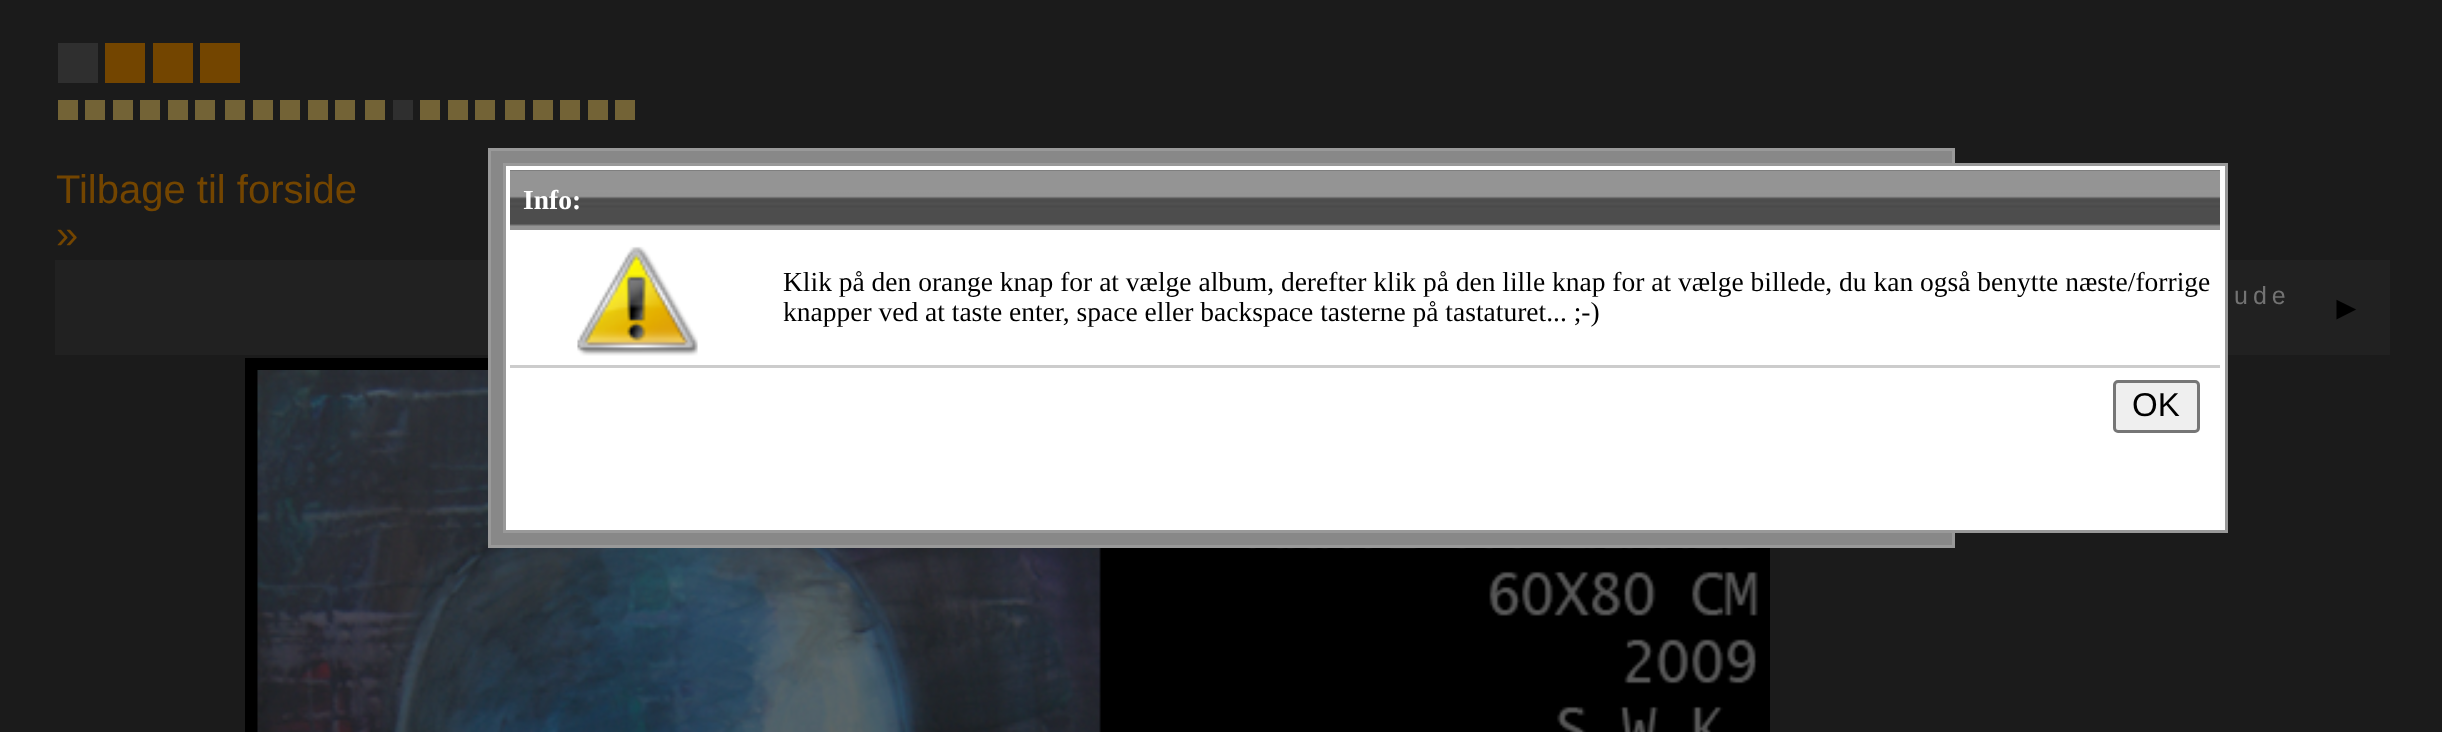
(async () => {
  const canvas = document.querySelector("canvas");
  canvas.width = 2442;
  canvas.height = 732;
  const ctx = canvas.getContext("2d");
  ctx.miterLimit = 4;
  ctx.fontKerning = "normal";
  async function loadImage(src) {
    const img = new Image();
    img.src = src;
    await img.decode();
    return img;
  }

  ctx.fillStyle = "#1b1b1b";
  ctx.fillRect(0, 0, 2442, 732);
  for (const [x, y, w, h, color] of [
    [58, 43, 40, 40, "#2f2f2f"],
    [105, 43, 40, 40, "#734500"],
    [153, 43, 40, 40, "#734500"],
    [200, 43, 40, 40, "#734500"],
    [58, 100, 20, 20, "#736336"],
    [85, 100, 20, 20, "#736336"],
    [113, 100, 20, 20, "#736336"],
    [140, 100, 20, 20, "#736336"],
    [168, 100, 20, 20, "#736336"],
    [195, 100, 20, 20, "#736336"],
    [225, 100, 20, 20, "#736336"],
    [253, 100, 20, 20, "#736336"],
    [280, 100, 20, 20, "#736336"],
    [308, 100, 20, 20, "#736336"],
    [335, 100, 20, 20, "#736336"],
    [365, 100, 20, 20, "#736336"],
    [393, 100, 20, 20, "#2f2f2f"],
    [420, 100, 20, 20, "#736336"],
    [448, 100, 20, 20, "#736336"],
    [475, 100, 20, 20, "#736336"],
    [505, 100, 20, 20, "#736336"],
    [533, 100, 20, 20, "#736336"],
    [560, 100, 20, 20, "#736336"],
    [588, 100, 20, 20, "#736336"],
    [615, 100, 20, 20, "#736336"],
    [55, 260, 433, 95, "#212121"],
    [2228, 260, 162, 95, "#212121"],
  ]) {
    ctx.fillStyle = color;
    ctx.fillRect(x, y, w, h);
  }
  ctx.strokeStyle = "#000000";
  ctx.lineWidth = 13;
  ctx.strokeRect(251.5, 364.5, 1512, 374);
  ctx.drawImage(await loadImage("img/1.png"), 257, 370, 1501, 362);
  ctx.fillStyle = "#888888";
  ctx.beginPath();
  ctx.rect(489.5, 149.5, 1464, 397);
  ctx.fill();
  ctx.strokeStyle = "#999999";
  ctx.lineWidth = 3;
  ctx.stroke();
  ctx.fillStyle = "#ffffff";
  ctx.beginPath();
  ctx.rect(504.5, 164.5, 1722, 367);
  ctx.fill();
  ctx.stroke();
  ctx.drawImage(await loadImage("img/2.png"), 510, 170, 1710, 60);
  ctx.drawImage(await loadImage("img/3.png"), 577, 246, 121, 110);
  ctx.fillStyle = "#cccccc";
  ctx.fillRect(510, 365, 1710, 3);
  ctx.fillStyle = "#efefef";
  ctx.beginPath();
  ctx.roundRect(2114.5, 381.5, 84, 50, 3.5);
  ctx.fill();
  ctx.strokeStyle = "#767676";
  ctx.stroke();
  ctx.font = "40px Liberation Sans";
  ctx.fillStyle = "#734500";
  ctx.fillText("Tilbage til forside", 56, 203);
  ctx.fillText("»", 56, 248);
  ctx.letterSpacing = "5px";
  ctx.font = "25px Liberation Sans";
  ctx.fillStyle = "#737373";
  ctx.fillText("ude", 2234, 304);
  ctx.letterSpacing = "0px";
  ctx.font = "33px Liberation Sans";
  ctx.fillStyle = "#000000";
  ctx.fillText("►", 2330, 319);
  ctx.font = "bold 27.5px Liberation Serif";
  ctx.fillStyle = "#ffffff";
  ctx.fillText("Info:", 523, 209);
  ctx.font = "27.5px Liberation Serif";
  ctx.fillStyle = "#000000";
  ctx.fillText("Klik på den orange knap for at vælge album, derefter klik på den lille knap for at vælge billede, du kan også benytte næste/forrige", 783, 291);
  ctx.fillText("knapper ved at taste enter, space eller backspace tasterne på tastaturet... ;-)", 783, 321);
  ctx.font = "33px Liberation Sans";
  ctx.fillText("OK", 2132, 416);
})();
